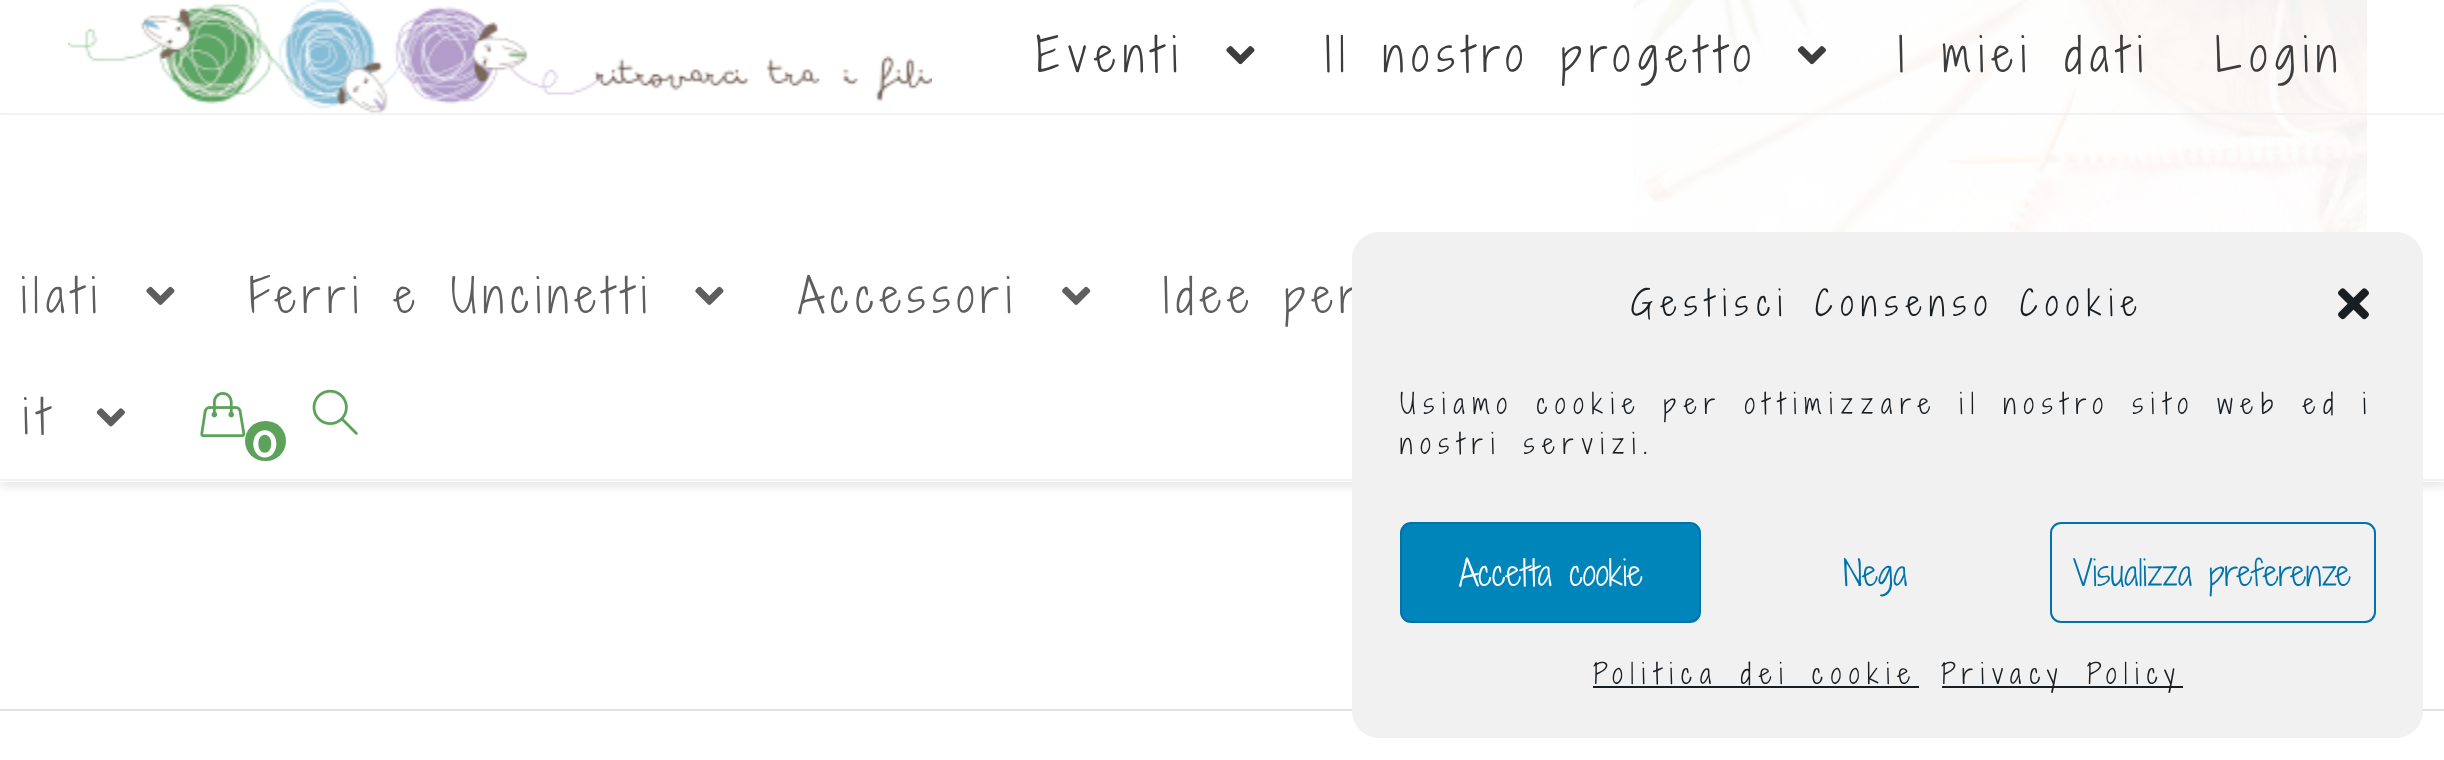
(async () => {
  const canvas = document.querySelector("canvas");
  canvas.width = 2444;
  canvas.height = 760;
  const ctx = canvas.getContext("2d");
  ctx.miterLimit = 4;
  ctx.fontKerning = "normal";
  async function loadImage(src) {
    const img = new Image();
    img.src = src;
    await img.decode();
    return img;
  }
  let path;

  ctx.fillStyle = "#ffffff";
  ctx.fillRect(0, 0, 2444, 760);
  ctx.drawImage(await loadImage("img/1.png"), 1633, 0, 734, 232);
  ctx.save();
  path = new Path2D("M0 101H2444V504H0ZM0 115H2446V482H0Z");
  ctx.clip(path, "evenodd");
  ctx.fillStyle = "rgba(0, 0, 0, 0.1)";
  ctx.filter = "blur(5.5px)";
  ctx.beginPath();
  ctx.rect(0, 119, 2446, 367);
  ctx.fill();
  ctx.filter = "none";
  ctx.restore();
  ctx.fillStyle = "rgba(255, 255, 255, 0.95)";
  ctx.fillRect(3, 0, 2440, 115);
  ctx.fillStyle = "rgba(241, 241, 241, 0.95)";
  ctx.fillRect(0, 113, 2444, 2);
  ctx.drawImage(await loadImage("img/2.png"), 68, 0, 864, 113);
  ctx.drawImage(await loadImage("img/3.png"), 1226, 46, 29, 19);
  ctx.drawImage(await loadImage("img/4.png"), 1797, 46, 29, 19);
  ctx.fillStyle = "rgba(255, 255, 255, 0.95)";
  ctx.fillRect(0, 115, 2444, 367);
  ctx.fillStyle = "rgba(241, 241, 241, 0.95)";
  ctx.fillRect(0, 479, 2444, 2);
  ctx.drawImage(await loadImage("img/5.png"), 146, 286, 29, 19);
  ctx.drawImage(await loadImage("img/5.png"), 695, 286, 29, 19);
  ctx.drawImage(await loadImage("img/6.png"), 1062, 286, 29, 19);
  ctx.drawImage(await loadImage("img/7.png"), 96, 408, 29, 19);
  ctx.drawImage(await loadImage("img/8.png"), 312, 389, 46, 46);
  ctx.drawImage(await loadImage("img/9.png"), 200, 392, 46, 46);
  ctx.fillStyle = "#5da25a";
  ctx.beginPath();
  ctx.roundRect(245, 421, 41, 40, 20);
  ctx.fill();
  ctx.fillStyle = "#e0e0e0";
  ctx.fillRect(0, 709, 2444, 2);
  ctx.letterSpacing = "7.88px";
  ctx.font = "300 45px Shadows Into Light Two";
  ctx.fillStyle = "#3d3d3d";
  for (const [text, x, y] of [
    ["Eventi", 1036, 72],
    ["Il nostro progetto", 1325, 72],
    ["I miei dati", 1898, 72],
    ["Login", 2215, 72],
  ]) {
    ctx.fillText(text, x, y);
  }
  ctx.letterSpacing = "6.75px";
  ctx.fillStyle = "#5e5e5e";
  for (const [text, x, y] of [
    ["ilati", 21, 313],
    ["Ferri e Uncinetti", 249, 313],
    ["Accessori", 798, 313],
    ["Idee per", 1163, 313],
    ["it", 23, 434],
  ]) {
    ctx.fillText(text, x, y);
  }
  ctx.letterSpacing = "0px";
  ctx.font = "600 45px Raleway";
  ctx.fillStyle = "#ffffff";
  ctx.fillText("0", 251, 457);
  ctx.fillStyle = "#f1f1f1";
  ctx.beginPath();
  ctx.roundRect(1353, 233, 1069, 504, 26);
  ctx.fill();
  ctx.strokeStyle = "#f1f1f1";
  ctx.lineWidth = 2;
  ctx.stroke();
  ctx.letterSpacing = "7.88px";
  ctx.font = "300 33.75px Shadows Into Light Two";
  ctx.fillStyle = "#191e23";
  ctx.fillText("Gestisci Consenso Cookie", 1631, 316);
  ctx.drawImage(await loadImage("img/10.png"), 2338, 288, 31, 32);
  ctx.font = "300 27px Shadows Into Light Two";
  ctx.fillText("Usiamo cookie per ottimizzare il nostro sito web ed i", 1400, 414);
  ctx.fillText("nostri servizi.", 1400, 454);
  ctx.fillStyle = "#0085ba";
  ctx.beginPath();
  ctx.roundRect(1401, 523, 299, 99, 10);
  ctx.fill();
  ctx.strokeStyle = "#0073aa";
  ctx.stroke();
  ctx.letterSpacing = "0px";
  ctx.font = "300 33.75px Shadows Into Light Two";
  ctx.fillStyle = "#ffffff";
  ctx.fillText("Accetta cookie", 1459, 586);
  ctx.fillStyle = "#0073aa";
  ctx.fillText("Nega", 1843, 586);
  ctx.beginPath();
  ctx.roundRect(2051, 523, 324, 99, 10);
  ctx.stroke();
  ctx.fillText("Visualizza preferenze", 2073, 586);
  ctx.letterSpacing = "7.88px";
  ctx.font = "300 27px Shadows Into Light Two";
  ctx.fillStyle = "#191e23";
  ctx.fillText("Politica dei cookie", 1593, 684);
  ctx.fillRect(1593, 686, 326, 2);
  ctx.fillRect(1942, 686, 241, 2);
  ctx.fillText("Privacy Policy", 1941, 684);
})();
